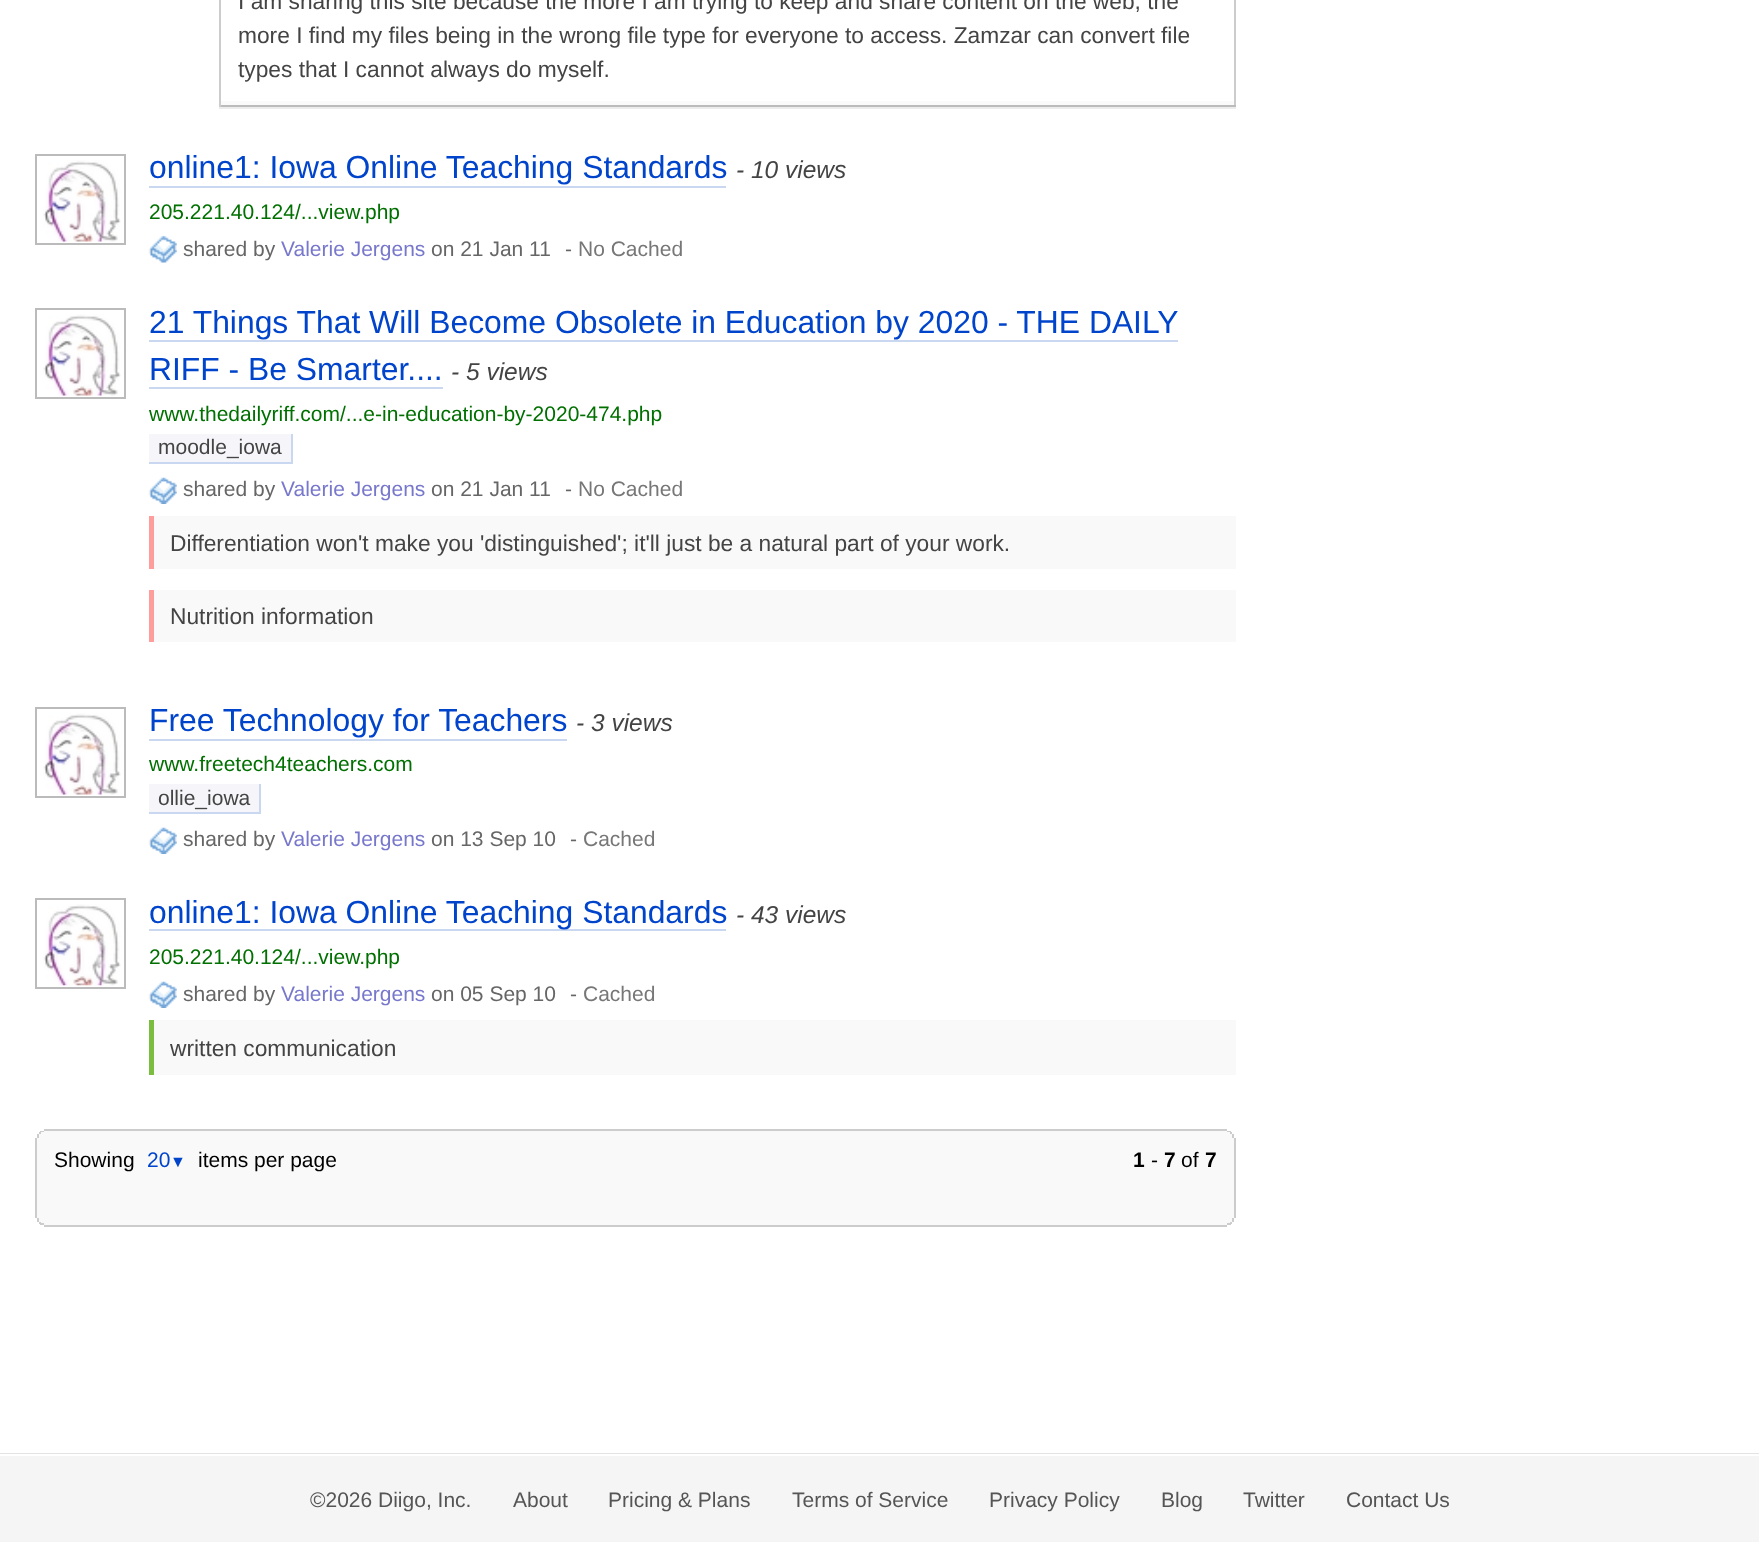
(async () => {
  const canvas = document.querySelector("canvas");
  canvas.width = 1759;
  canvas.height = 1542;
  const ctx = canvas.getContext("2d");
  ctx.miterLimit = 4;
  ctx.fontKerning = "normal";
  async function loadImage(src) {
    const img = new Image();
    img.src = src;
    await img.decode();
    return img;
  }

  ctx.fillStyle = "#ffffff";
  ctx.fillRect(0, 0, 1759, 1542);
  for (const [x, y, w, h, color] of [
    [219, 107, 1017, 2, "#ececec"],
    [219, 101, 1016, 4, "#fafafa"],
    [1234, 0, 2, 107, "#cccccc"],
    [219, 105, 1017, 2, "#bbbbbb"],
    [219, 0, 2, 107, "#cccccc"],
  ]) {
    ctx.fillStyle = color;
    ctx.fillRect(x, y, w, h);
  }
  ctx.strokeStyle = "#bbbbbb";
  ctx.lineWidth = 2;
  ctx.strokeRect(36, 155, 89, 89);
  ctx.drawImage(await loadImage("img/1.png"), 43, 160, 78, 82);
  ctx.fillStyle = "#c9d7f1";
  ctx.fillRect(149, 186, 577, 2);
  ctx.drawImage(await loadImage("img/2.png"), 148, 236, 29, 27);
  ctx.strokeRect(36, 309, 89, 89);
  ctx.drawImage(await loadImage("img/1.png"), 43, 314, 78, 82);
  for (const [x, y, w, h, color] of [
    [149, 340, 1029, 2, "#c9d7f1"],
    [149, 387, 294, 2, "#c9d7f1"],
    [149, 434, 142, 28, "#f5f5fa"],
    [291, 434, 2, 30, "#c9d7f1"],
    [149, 462, 143, 2, "#c9d7f1"],
  ]) {
    ctx.fillStyle = color;
    ctx.fillRect(x, y, w, h);
  }
  ctx.drawImage(await loadImage("img/3.png"), 148, 477, 29, 27);
  for (const [x, y, w, h, color] of [
    [154, 516, 1082, 53, "#f9f9f9"],
    [149, 516, 5, 53, "#ff9c9c"],
    [154, 590, 1082, 52, "#f9f9f9"],
    [149, 590, 5, 52, "#ff9c9c"],
  ]) {
    ctx.fillStyle = color;
    ctx.fillRect(x, y, w, h);
  }
  ctx.strokeRect(36, 708, 89, 89);
  ctx.drawImage(await loadImage("img/4.png"), 43, 713, 78, 82);
  for (const [x, y, w, h, color] of [
    [149, 739, 418, 2, "#c9d7f1"],
    [149, 784, 110, 28, "#f5f5fa"],
    [259, 784, 2, 30, "#c9d7f1"],
    [149, 812, 112, 2, "#c9d7f1"],
  ]) {
    ctx.fillStyle = color;
    ctx.fillRect(x, y, w, h);
  }
  ctx.drawImage(await loadImage("img/5.png"), 148, 827, 29, 27);
  ctx.strokeRect(36, 899, 89, 89);
  ctx.drawImage(await loadImage("img/6.png"), 43, 904, 78, 82);
  ctx.fillRect(149, 929, 577, 2);
  ctx.drawImage(await loadImage("img/3.png"), 148, 981, 29, 27);
  for (const [x, y, w, h, color] of [
    [154, 1020, 1082, 55, "#f9f9f9"],
    [149, 1020, 5, 55, "#7bbd3f"],
    [44, 1129, 1183, 2, "#cccccc"],
    [40, 1131, 1190, 1, "#f9f9f9"],
    [1227, 1131, 4, 1, "#cccccc"],
    [40, 1131, 4, 1, "#cccccc"],
    [39, 1132, 1193, 2, "#f9f9f9"],
    [1230, 1132, 2, 2, "#cccccc"],
    [39, 1132, 2, 2, "#cccccc"],
    [37, 1134, 1197, 88, "#f9f9f9"],
    [1232, 1134, 2, 4, "#cccccc"],
    [37, 1134, 2, 4, "#cccccc"],
    [1234, 1138, 2, 80, "#cccccc"],
    [35, 1138, 2, 80, "#cccccc"],
    [1232, 1218, 2, 4, "#cccccc"],
    [37, 1218, 2, 4, "#cccccc"],
    [39, 1222, 1193, 1, "#f9f9f9"],
    [1230, 1222, 2, 2, "#cccccc"],
    [39, 1222, 2, 2, "#cccccc"],
    [40, 1223, 1190, 2, "#f9f9f9"],
    [1227, 1223, 4, 2, "#cccccc"],
    [40, 1223, 4, 2, "#cccccc"],
    [44, 1225, 1183, 2, "#cccccc"],
    [0, 1456, 1759, 86, "#f5f5f5"],
    [0, 1453, 1759, 1, "#e3e3e3"],
  ]) {
    ctx.fillStyle = color;
    ctx.fillRect(x, y, w, h);
  }
  ctx.font = "22.75px Liberation Sans";
  ctx.fillStyle = "#444444";
  for (const [text, x, y] of [
    ["I am sharing this site because the more I am trying to keep and share content on the web, the", 238, 9],
    ["more I find my files being in the wrong file type for everyone to access. Zamzar can convert file", 238, 43],
    ["types that I cannot always do myself.", 238, 77],
  ]) {
    ctx.fillText(text, x, y);
  }
  ctx.font = "31.85px Liberation Sans";
  ctx.fillStyle = "#0044cc";
  ctx.fillText("online1: Iowa Online Teaching Standards", 149, 178);
  ctx.font = "italic 24.5px Liberation Sans";
  ctx.fillStyle = "#444444";
  ctx.fillText("- 10 views", 736, 178);
  ctx.font = "21px Liberation Sans";
  ctx.fillStyle = "#007000";
  ctx.fillText("205.221.40.124/...view.php", 149, 219);
  ctx.fillStyle = "#666666";
  ctx.fillText("shared by", 183, 256);
  ctx.fillStyle = "#7777cc";
  ctx.fillText("Valerie Jergens", 281, 256);
  ctx.fillStyle = "#666666";
  ctx.fillText("on 21 Jan 11", 431, 256);
  ctx.fillText("-", 565, 256);
  ctx.fillStyle = "#777777";
  ctx.fillText("No Cached", 578, 256);
  ctx.font = "31.85px Liberation Sans";
  ctx.fillStyle = "#0044cc";
  ctx.fillText("21 Things That Will Become Obsolete in Education by 2020 - THE DAILY", 149, 333);
  ctx.fillText("RIFF - Be Smarter....", 149, 380);
  ctx.font = "italic 24.5px Liberation Sans";
  ctx.fillStyle = "#444444";
  ctx.fillText("- 5 views", 451, 380);
  ctx.font = "21px Liberation Sans";
  ctx.fillStyle = "#007000";
  ctx.fillText("www.thedailyriff.com/...e-in-education-by-2020-474.php", 149, 421);
  ctx.fillStyle = "#444444";
  ctx.fillText("moodle_iowa", 158, 454);
  ctx.fillStyle = "#666666";
  ctx.fillText("shared by", 183, 496);
  ctx.fillStyle = "#7777cc";
  ctx.fillText("Valerie Jergens", 281, 496);
  ctx.fillStyle = "#666666";
  ctx.fillText("on 21 Jan 11", 431, 496);
  ctx.fillText("-", 565, 496);
  ctx.fillStyle = "#777777";
  ctx.fillText("No Cached", 578, 496);
  ctx.font = "22.75px Liberation Sans";
  ctx.fillStyle = "#444444";
  ctx.fillText("Differentiation won't make you 'distinguished'; it'll just be a natural part of your work.", 170, 551);
  ctx.fillText("Nutrition information", 170, 624);
  ctx.font = "31.85px Liberation Sans";
  ctx.fillStyle = "#0044cc";
  ctx.fillText("Free Technology for Teachers", 149, 731);
  ctx.font = "italic 24.5px Liberation Sans";
  ctx.fillStyle = "#444444";
  ctx.fillText("- 3 views", 576, 731);
  ctx.font = "21px Liberation Sans";
  ctx.fillStyle = "#007000";
  ctx.fillText("www.freetech4teachers.com", 149, 771);
  ctx.fillStyle = "#444444";
  ctx.fillText("ollie_iowa", 158, 805);
  ctx.fillStyle = "#666666";
  ctx.fillText("shared by", 183, 846);
  ctx.fillStyle = "#7777cc";
  ctx.fillText("Valerie Jergens", 281, 846);
  ctx.fillStyle = "#666666";
  ctx.fillText("on 13 Sep 10", 431, 846);
  ctx.fillText("-", 570, 846);
  ctx.fillStyle = "#777777";
  ctx.fillText("Cached", 583, 846);
  ctx.font = "31.85px Liberation Sans";
  ctx.fillStyle = "#0044cc";
  ctx.fillText("online1: Iowa Online Teaching Standards", 149, 923);
  ctx.font = "italic 24.5px Liberation Sans";
  ctx.fillStyle = "#444444";
  ctx.fillText("- 43 views", 736, 923);
  ctx.font = "21px Liberation Sans";
  ctx.fillStyle = "#007000";
  ctx.fillText("205.221.40.124/...view.php", 149, 964);
  ctx.fillStyle = "#666666";
  ctx.fillText("shared by", 183, 1001);
  ctx.fillStyle = "#7777cc";
  ctx.fillText("Valerie Jergens", 281, 1001);
  ctx.fillStyle = "#666666";
  ctx.fillText("on 05 Sep 10", 431, 1001);
  ctx.fillText("-", 570, 1001);
  ctx.fillStyle = "#777777";
  ctx.fillText("Cached", 583, 1001);
  ctx.font = "22.75px Liberation Sans";
  ctx.fillStyle = "#444444";
  ctx.fillText("written communication", 170, 1056);
  ctx.font = "21px Liberation Sans";
  ctx.fillStyle = "#000000";
  ctx.fillText("Showing", 54, 1167);
  ctx.fillStyle = "#0044cc";
  ctx.fillText("20", 147, 1167);
  ctx.font = "bold 16px Liberation Sans";
  ctx.fillText("▼", 170, 1167);
  ctx.font = "21px Liberation Sans";
  ctx.fillStyle = "#000000";
  ctx.fillText("items per page", 198, 1167);
  ctx.font = "bold 21px Liberation Sans";
  ctx.fillText("1", 1133, 1167);
  ctx.font = "21px Liberation Sans";
  ctx.fillText("-", 1151, 1167);
  ctx.font = "bold 21px Liberation Sans";
  ctx.fillText("7", 1164, 1167);
  ctx.font = "21px Liberation Sans";
  ctx.fillText("of", 1181, 1167);
  ctx.font = "bold 21px Liberation Sans";
  ctx.fillText("7", 1205, 1167);
  ctx.font = "21px Liberation Sans";
  ctx.fillStyle = "#555555";
  for (const [text, x, y] of [
    ["©2026 Diigo, Inc.", 310, 1507],
    ["About", 513, 1507],
    ["Pricing & Plans", 608, 1507],
    ["Terms of Service", 792, 1507],
    ["Privacy Policy", 989, 1507],
    ["Blog", 1161, 1507],
    ["Twitter", 1243, 1507],
    ["Contact Us", 1346, 1507],
  ]) {
    ctx.fillText(text, x, y);
  }
})();
